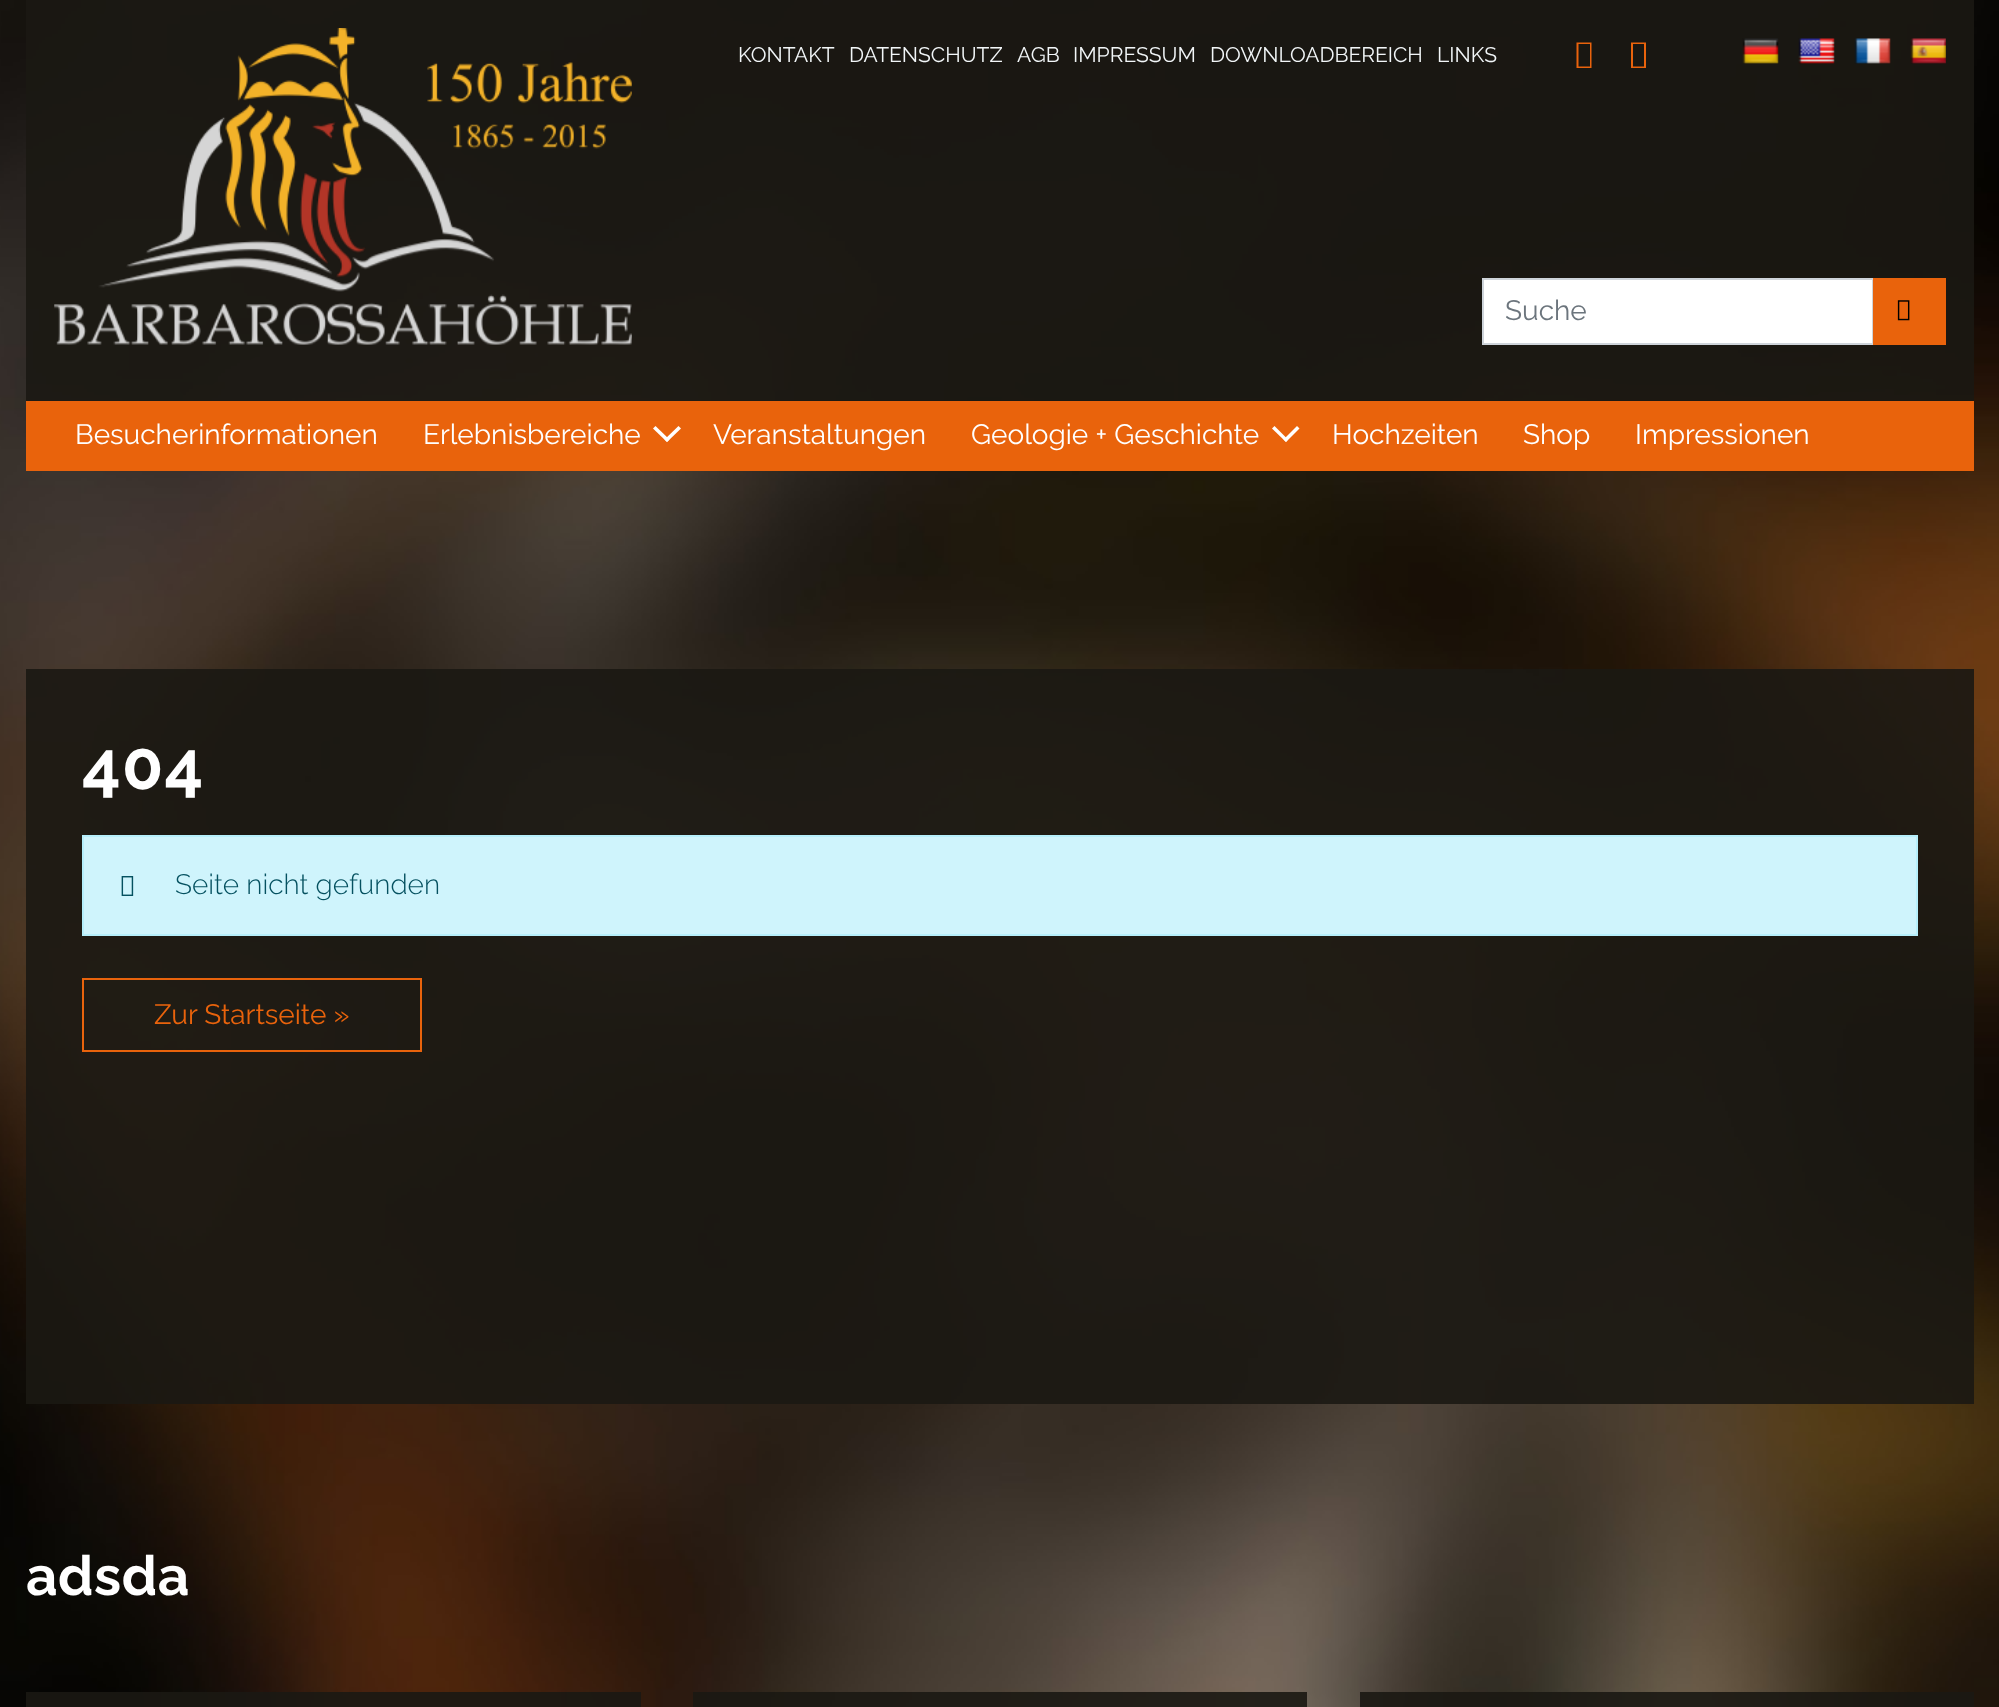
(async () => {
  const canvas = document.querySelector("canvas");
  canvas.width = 1999;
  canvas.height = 1707;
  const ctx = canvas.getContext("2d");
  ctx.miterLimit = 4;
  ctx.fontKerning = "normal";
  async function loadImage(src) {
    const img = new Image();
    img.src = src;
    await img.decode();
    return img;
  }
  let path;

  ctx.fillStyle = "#ffffff";
  ctx.fillRect(0, 0, 1999, 1707);
  ctx.drawImage(await loadImage("img/1.png"), 0, 0, 1999, 1707);
  ctx.fillStyle = "rgba(27, 24, 19, 0.9)";
  ctx.fillRect(26, 0, 1948, 401);
  ctx.drawImage(await loadImage("img/2.png"), 54, 28, 578, 317);
  ctx.fillStyle = "#e9630c";
  path = new Path2D("M1576.5 68V42.5H1591.5V68ZM1578.5 66.5H1590V44H1578.5Z");
  ctx.fill(path);
  path = new Path2D("M1631 68V42.5H1646V68ZM1633 66.5H1644V44H1633Z");
  ctx.fill(path);
  ctx.drawImage(await loadImage("img/3.png"), 1742, 38, 37, 26);
  ctx.drawImage(await loadImage("img/4.png"), 1798, 38, 37, 26);
  ctx.drawImage(await loadImage("img/5.png"), 1854, 38, 37, 26);
  ctx.drawImage(await loadImage("img/6.png"), 1910, 38, 36, 26);
  ctx.fillStyle = "#ffffff";
  ctx.beginPath();
  ctx.rect(1483, 279, 390, 65);
  ctx.fill();
  ctx.strokeStyle = "#ced4da";
  ctx.lineWidth = 2;
  ctx.stroke();
  ctx.fillStyle = "#e9630c";
  ctx.fillRect(1873, 278, 73, 67);
  ctx.drawImage(await loadImage("img/7.png"), 1897, 300, 13, 21);
  ctx.fillRect(26, 401, 1948, 70);
  ctx.fillStyle = "#ffffff";
  path = new Path2D("M678.5 426L681 428.5L667 442L664.5 439.5Z");
  ctx.fill(path);
  path = new Path2D("M655.5 426L669.5 439.5L667 442L653 428.5Z");
  ctx.fill(path);
  path = new Path2D("M1297 426L1299.5 428.5L1286 442L1283.5 439.5Z");
  ctx.fill(path);
  path = new Path2D("M1274.5 426L1288 439.5L1286 442L1272 428.5Z");
  ctx.fill(path);
  ctx.fillStyle = "rgba(27, 24, 19, 0.9)";
  ctx.fillRect(26, 669, 1948, 735);
  ctx.fillStyle = "#cff4fc";
  ctx.beginPath();
  ctx.rect(83, 836, 1834, 99);
  ctx.fill();
  ctx.strokeStyle = "#b6effb";
  ctx.stroke();
  ctx.drawImage(await loadImage("img/8.png"), 121, 876, 13, 20);
  ctx.strokeStyle = "#e9630c";
  ctx.strokeRect(83, 979, 338, 72);
  for (const [x, y, w, h, color] of [
    [26, 1692, 615, 15, "rgba(27, 24, 19, 0.9)"],
    [693, 1692, 614, 15, "rgba(27, 24, 19, 0.9)"],
    [1360, 1692, 614, 15, "rgba(27, 24, 19, 0.9)"],
  ]) {
    ctx.fillStyle = color;
    ctx.fillRect(x, y, w, h);
  }
  ctx.font = "100 21px 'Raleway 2'";
  ctx.fillStyle = "#f2f6f8";
  for (const [text, x, y] of [
    ["KONTAKT", 738, 62],
    ["DATENSCHUTZ", 849, 62],
    ["AGB", 1017, 62],
    ["IMPRESSUM", 1073, 62],
    ["DOWNLOADBEREICH", 1210, 62],
    ["LINKS", 1437, 62],
  ]) {
    ctx.fillText(text, x, y);
  }
  ctx.font = "100 28px 'Raleway 2'";
  ctx.fillStyle = "#6c757d";
  ctx.fillText("Suche", 1505, 320);
  ctx.fillStyle = "#ffffff";
  for (const [text, x, y] of [
    ["Besucherinformationen", 75, 444],
    ["Erlebnisbereiche", 423, 444],
    ["Veranstaltungen", 713, 444],
    ["Geologie + Geschichte", 971, 444],
    ["Hochzeiten", 1332, 444],
    ["Shop", 1523, 444],
    ["Impressionen", 1635, 444],
  ]) {
    ctx.fillText(text, x, y);
  }
  ctx.letterSpacing = "1px";
  ctx.font = "100 68px Raleway";
  ctx.fillText("404", 82, 789);
  ctx.letterSpacing = "0px";
  ctx.font = "100 28px 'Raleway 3'";
  ctx.fillStyle = "#055160";
  ctx.fillText("Seite nicht gefunden", 175, 894);
  ctx.font = "100 28px 'Raleway 2'";
  ctx.fillStyle = "#e9630c";
  ctx.fillText("Zur Startseite »", 154, 1024);
  ctx.letterSpacing = "0.5px";
  ctx.font = "100 55px Raleway";
  ctx.fillStyle = "#ffffff";
  ctx.fillText("adsda", 26, 1595);
})();
